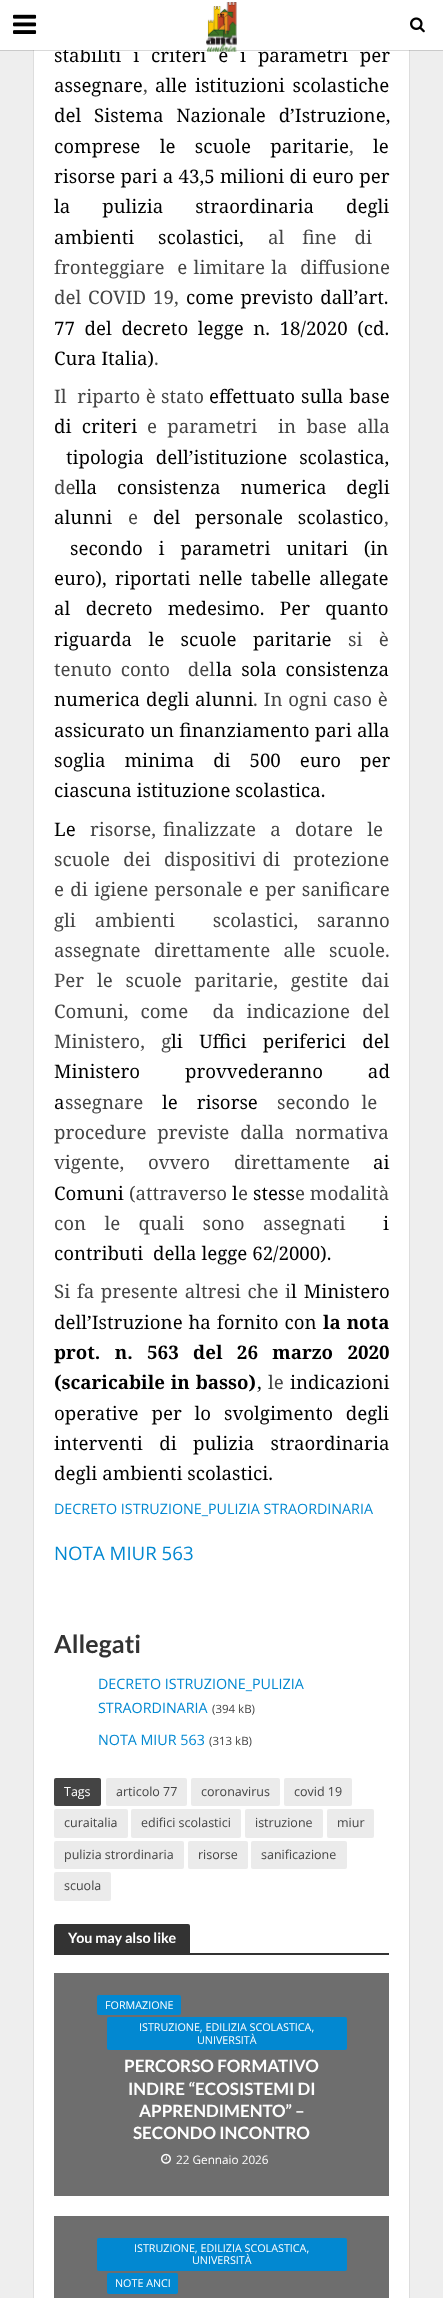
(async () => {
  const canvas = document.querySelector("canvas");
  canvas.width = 443;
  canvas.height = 2298;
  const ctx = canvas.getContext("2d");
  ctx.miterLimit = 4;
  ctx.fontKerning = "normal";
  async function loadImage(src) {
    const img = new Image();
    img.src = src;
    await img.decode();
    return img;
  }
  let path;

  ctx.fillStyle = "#eeeeee";
  ctx.fillRect(0, 0, 443, 2298);
  ctx.strokeStyle = "#dddddd";
  ctx.strokeRect(33.5, -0.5, 376, 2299);
  ctx.fillStyle = "#ffffff";
  ctx.fillRect(34, 50, 375, 2248);
  ctx.fillStyle = "#444444";
  ctx.beginPath();
  ctx.roundRect(54, 1778, 47, 28, 2);
  ctx.fill();
  ctx.fillStyle = "#ebebeb";
  ctx.beginPath();
  ctx.roundRect(106, 1778, 81, 28, 2);
  ctx.fill();
  ctx.beginPath();
  ctx.roundRect(191, 1778, 89, 28, 2);
  ctx.fill();
  ctx.beginPath();
  ctx.roundRect(284, 1778, 68, 28, 2);
  ctx.fill();
  ctx.beginPath();
  ctx.roundRect(54, 1809, 74, 29, 2);
  ctx.fill();
  ctx.beginPath();
  ctx.roundRect(131, 1809, 110, 29, 2);
  ctx.fill();
  ctx.beginPath();
  ctx.roundRect(245, 1809, 78, 29, 2);
  ctx.fill();
  ctx.beginPath();
  ctx.roundRect(327, 1809, 47, 29, 2);
  ctx.fill();
  ctx.beginPath();
  ctx.roundRect(54, 1841, 130, 28, 2);
  ctx.fill();
  ctx.beginPath();
  ctx.roundRect(188, 1841, 60, 28, 2);
  ctx.fill();
  ctx.beginPath();
  ctx.roundRect(251, 1841, 96, 28, 2);
  ctx.fill();
  ctx.beginPath();
  ctx.roundRect(54, 1872, 57, 29, 2);
  ctx.fill();
  ctx.fillStyle = "#333333";
  ctx.beginPath();
  ctx.roundRect(54, 1924, 136, 29, [2, 2, 0, 0]);
  ctx.fill();
  ctx.fillRect(54, 1953, 335, 2);
  ctx.fillStyle = "#6e6e6e";
  ctx.fillRect(54, 1973, 335, 223);
  ctx.fillStyle = "#0288d1";
  ctx.beginPath();
  ctx.roundRect(97, 1995, 84, 20, 2);
  ctx.fill();
  ctx.beginPath();
  ctx.roundRect(107, 2017, 240, 33, 2);
  ctx.fill();
  ctx.drawImage(await loadImage("img/4.png"), 161, 2153, 10, 11);
  ctx.fillStyle = "#6e6e6e";
  ctx.fillRect(54, 2216, 335, 82);
  ctx.fillStyle = "#0288d1";
  ctx.beginPath();
  ctx.roundRect(97, 2238, 250, 33, 2);
  ctx.fill();
  ctx.beginPath();
  ctx.roundRect(107, 2273, 71, 21, 2);
  ctx.fill();
  ctx.wordSpacing = "7px";
  ctx.font = "18.7px Noto Serif";
  ctx.fillStyle = "#000000";
  ctx.fillText("stabiliti i criteri e i parametri per", 54, 62);
  ctx.fillStyle = "#ffffff";
  ctx.fillRect(0, 0, 443, 50);
  ctx.drawImage(await loadImage("img/3.png"), 410, 17, 15, 16);
  ctx.drawImage(await loadImage("img/1.png"), 13, 14, 24, 20);
  ctx.fillStyle = "rgba(0, 0, 0, 0.15)";
  path = new Path2D("M0-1V0H443V50H0V51H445V-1Z");
  ctx.fill(path);
  ctx.drawImage(await loadImage("img/2.png"), 206, 2, 31, 50);
  ctx.wordSpacing = "0px";
  ctx.fillStyle = "#000000";
  ctx.fillText("assegnare", 54, 92);
  ctx.fillStyle = "#444444";
  ctx.fillText(",", 143, 92);
  ctx.wordSpacing = "3px";
  ctx.fillStyle = "#000000";
  ctx.fillText("alle istituzioni scolastiche", 155, 92);
  ctx.wordSpacing = "8px";
  ctx.fillText("del Sistema Nazionale d’Istruzione,", 54, 122);
  ctx.wordSpacing = "14.5px";
  ctx.fillText("comprese le scuole paritarie", 54, 153);
  ctx.wordSpacing = "0px";
  ctx.fillStyle = "#444444";
  ctx.fillText(",", 349, 153);
  ctx.fillStyle = "#000000";
  ctx.fillText("le", 373, 153);
  ctx.wordSpacing = "0.5px";
  ctx.fillText("risorse pari a 43,5 milioni di euro per", 54, 183);
  ctx.wordSpacing = "27px";
  ctx.fillText("la pulizia straordinaria degli", 54, 213);
  ctx.wordSpacing = "19px";
  ctx.fillText("ambienti scolastici,", 54, 244);
  ctx.wordSpacing = "13px";
  ctx.fillStyle = "#444444";
  ctx.fillText("al fine di", 268, 244);
  ctx.wordSpacing = "1.5px";
  ctx.fillText("fronteggiare  e limitare la  diffusione", 54, 274);
  ctx.wordSpacing = "2px";
  ctx.fillText("del COVID 19,", 54, 304);
  ctx.fillStyle = "#000000";
  ctx.fillText("come previsto dall’art.", 186, 304);
  ctx.wordSpacing = "4.75px";
  ctx.fillText("77 del decreto legge n. 18/2020 (cd.", 54, 335);
  ctx.wordSpacing = "0px";
  ctx.fillText("Cura Italia)", 54, 365);
  ctx.fillStyle = "#444444";
  ctx.fillText(".", 154, 365);
  ctx.wordSpacing = "0.5px";
  ctx.fillText("Il  riparto è stato", 54, 403);
  ctx.wordSpacing = "1px";
  ctx.fillStyle = "#000000";
  ctx.fillText("effettuato sulla base", 209, 403);
  ctx.wordSpacing = "5.5px";
  ctx.fillText("di criteri", 54, 433);
  ctx.fillStyle = "#444444";
  ctx.fillText("e parametri  in base alla", 147, 433);
  ctx.wordSpacing = "7px";
  ctx.fillStyle = "#000000";
  ctx.fillText("tipologia dell’istituzione scolastica,", 66, 464);
  ctx.wordSpacing = "0px";
  ctx.fillStyle = "#444444";
  ctx.fillText("de", 54, 494);
  ctx.wordSpacing = "15px";
  ctx.fillStyle = "#000000";
  ctx.fillText("lla consistenza numerica degli", 75, 494);
  ctx.wordSpacing = "0px";
  ctx.fillText("alunni", 54, 524);
  ctx.fillStyle = "#444444";
  ctx.fillText("e", 128, 524);
  ctx.wordSpacing = "10px";
  ctx.fillStyle = "#000000";
  ctx.fillText("del personale scolastico", 153, 524);
  ctx.wordSpacing = "0px";
  ctx.fillStyle = "#444444";
  ctx.fillText(",", 384, 524);
  ctx.wordSpacing = "11px";
  ctx.fillStyle = "#000000";
  ctx.fillText("secondo i parametri unitari (in", 70, 555);
  ctx.wordSpacing = "3.5px";
  ctx.fillText("euro), riportati nelle tabelle allegate", 54, 585);
  ctx.wordSpacing = "10.5px";
  ctx.fillText("al decreto medesimo. Per quanto", 54, 615);
  ctx.wordSpacing = "11.5px";
  ctx.fillText("riguarda le scuole paritarie", 54, 646);
  ctx.fillStyle = "#444444";
  ctx.fillText("si è", 348, 646);
  ctx.wordSpacing = "4px";
  ctx.fillText("tenuto conto  del", 54, 676);
  ctx.fillStyle = "#000000";
  ctx.fillText("la sola consistenza", 216, 676);
  ctx.wordSpacing = "1px";
  ctx.fillText("numerica degli alunni", 54, 706);
  ctx.fillStyle = "#444444";
  ctx.fillText(". In ogni caso è", 253, 706);
  ctx.wordSpacing = "0.5px";
  ctx.fillStyle = "#000000";
  ctx.fillText("assicurato un finanziamento pari alla", 54, 737);
  ctx.wordSpacing = "14px";
  ctx.fillText("soglia minima di 500 euro per", 54, 767);
  ctx.wordSpacing = "0px";
  ctx.fillText("ciascuna istituzione scolastica.", 54, 797);
  ctx.fillText("Le", 54, 836);
  ctx.wordSpacing = "2.25px";
  ctx.fillStyle = "#444444";
  ctx.fillText("risorse, finalizzate  a  dotare  le", 90, 836);
  ctx.wordSpacing = "1.75px";
  ctx.fillText("scuole  dei  dispositivi di  protezione", 54, 866);
  ctx.wordSpacing = "1.5px";
  ctx.fillText("e di igiene personale e per sanificare", 54, 896);
  ctx.wordSpacing = "14px";
  ctx.fillText("gli ambienti  scolastici, saranno", 54, 927);
  ctx.wordSpacing = "8.5px";
  ctx.fillText("assegnate direttamente alle scuole.", 54, 957);
  ctx.wordSpacing = "8px";
  ctx.fillText("Per le scuole paritarie, gestite dai", 54, 987);
  ctx.wordSpacing = "7.25px";
  ctx.fillText("Comuni, come  da indicazione del", 54, 1018);
  ctx.wordSpacing = "11.5px";
  ctx.fillText("Ministero, g", 54, 1048);
  ctx.fillStyle = "#000000";
  ctx.fillText("li Uffici periferici del", 171, 1048);
  ctx.wordSpacing = "40px";
  ctx.fillText("Ministero provvederanno ad", 54, 1078);
  ctx.wordSpacing = "0px";
  ctx.fillText("a", 54, 1109);
  ctx.fillStyle = "#444444";
  ctx.fillText("ssegnare", 65, 1109);
  ctx.wordSpacing = "14px";
  ctx.fillStyle = "#000000";
  ctx.fillText("le risorse", 162, 1109);
  ctx.wordSpacing = "7px";
  ctx.fillStyle = "#444444";
  ctx.fillText("secondo le", 277, 1109);
  ctx.wordSpacing = "6px";
  ctx.fillText("procedure previste dalla normativa", 54, 1139);
  ctx.wordSpacing = "19px";
  ctx.fillText("vigente, ovvero direttamente", 54, 1169);
  ctx.wordSpacing = "0px";
  ctx.fillStyle = "#000000";
  ctx.fillText("ai", 373, 1169);
  ctx.fillText("Comuni", 54, 1200);
  ctx.fillStyle = "#444444";
  ctx.fillText("(attraverso", 129, 1200);
  ctx.fillStyle = "#000000";
  ctx.fillText("l", 232, 1200);
  ctx.fillStyle = "#444444";
  ctx.fillText("e", 238, 1200);
  ctx.fillStyle = "#000000";
  ctx.fillText("stess", 253, 1200);
  ctx.fillStyle = "#444444";
  ctx.fillText("e modalità", 295, 1200);
  ctx.wordSpacing = "13.5px";
  ctx.fillText("con le quali sono assegnati", 54, 1230);
  ctx.wordSpacing = "0px";
  ctx.fillStyle = "#000000";
  ctx.fillText("i", 383, 1230);
  ctx.fillText("contributi  della legge 62/2000).", 54, 1260);
  ctx.wordSpacing = "1.75px";
  ctx.fillStyle = "#444444";
  ctx.fillText("Si fa presente altresi che i", 54, 1298);
  ctx.wordSpacing = "2px";
  ctx.fillStyle = "#000000";
  ctx.fillText("l Ministero", 291, 1298);
  ctx.wordSpacing = "1px";
  ctx.fillText("dell’Istruzione ha fornito con", 54, 1329);
  ctx.font = "bold 18.7px Noto Serif";
  ctx.fillText("la nota", 323, 1329);
  ctx.wordSpacing = "9.5px";
  ctx.fillText("prot. n. 563 del 26 marzo 2020", 54, 1359);
  ctx.wordSpacing = "1px";
  ctx.fillText("(scaricabile in basso)", 54, 1389);
  ctx.wordSpacing = "0px";
  ctx.font = "18.7px Noto Serif";
  ctx.fillText(",", 257, 1389);
  ctx.fillStyle = "#444444";
  ctx.fillText("le", 268, 1389);
  ctx.fillStyle = "#000000";
  ctx.fillText("indicazioni", 290, 1389);
  ctx.wordSpacing = "8px";
  ctx.fillText("operative per lo svolgimento degli", 54, 1420);
  ctx.wordSpacing = "11.5px";
  ctx.fillText("interventi di pulizia straordinaria", 54, 1450);
  ctx.wordSpacing = "0px";
  ctx.fillText("degli ambienti scolastici.", 54, 1480);
  ctx.font = "14.3px Open Sans";
  ctx.fillStyle = "#0288d1";
  ctx.fillText("DECRETO ISTRUZIONE_PULIZIA STRAORDINARIA", 54, 1514);
  ctx.font = "18.7px Open Sans";
  ctx.fillText("NOTA MIUR 563", 54, 1560);
  ctx.font = "bold 25px Lato";
  ctx.fillStyle = "#333333";
  ctx.fillText("Allegati", 54, 1653);
  ctx.font = "14.3px Open Sans";
  ctx.fillStyle = "#0288d1";
  ctx.fillText("DECRETO ISTRUZIONE_PULIZIA", 98, 1689);
  ctx.fillText("STRAORDINARIA", 98, 1713);
  ctx.font = "11.5px Open Sans";
  ctx.fillStyle = "#444444";
  ctx.fillText("(394 kB)", 212, 1713);
  ctx.font = "14.3px Open Sans";
  ctx.fillStyle = "#0288d1";
  ctx.fillText("NOTA MIUR 563", 98, 1745);
  ctx.font = "11.5px Open Sans";
  ctx.fillStyle = "#444444";
  ctx.fillText("(313 kB)", 209, 1745);
  ctx.font = "12.5px Open Sans";
  ctx.fillStyle = "#ffffff";
  ctx.fillText("Tags", 64, 1796);
  ctx.fillStyle = "#444444";
  for (const [text, x, y] of [
    ["articolo 77", 116, 1796],
    ["coronavirus", 201, 1796],
    ["covid 19", 294, 1796],
    ["curaitalia", 64, 1827],
    ["edifici scolastici", 141, 1827],
    ["istruzione", 255, 1827],
    ["miur", 337, 1827],
    ["pulizia strordinaria", 64, 1859],
    ["risorse", 198, 1859],
    ["sanificazione", 261, 1859],
    ["scuola", 64, 1890],
  ]) {
    ctx.fillText(text, x, y);
  }
  ctx.font = "bold 14.3px Lato";
  ctx.fillStyle = "#ffffff";
  ctx.fillText("You may also like", 68, 1943);
  ctx.font = "10.75px Open Sans";
  for (const [text, x, y] of [
    ["FORMAZIONE", 105, 2009],
    ["ISTRUZIONE, EDILIZIA SCOLASTICA,", 139, 2031],
    ["UNIVERSITÀ", 197, 2044],
  ]) {
    ctx.fillText(text, x, y);
  }
  ctx.font = "bold 17px Lato";
  for (const [text, x, y] of [
    ["PERCORSO FORMATIVO", 124, 2072],
    ["INDIRE “ECOSISTEMI DI", 128, 2095],
    ["APPRENDIMENTO” –", 139, 2117],
    ["SECONDO INCONTRO", 133, 2139],
  ]) {
    ctx.fillText(text, x, y);
  }
  ctx.font = "11.75px Open Sans";
  ctx.fillText("22 Gennaio 2026", 176, 2164);
  ctx.font = "10.75px Open Sans";
  for (const [text, x, y] of [
    ["ISTRUZIONE, EDILIZIA SCOLASTICA,", 134, 2252],
    ["UNIVERSITÀ", 192, 2264],
    ["NOTE ANCI", 115, 2287],
  ]) {
    ctx.fillText(text, x, y);
  }
})();
